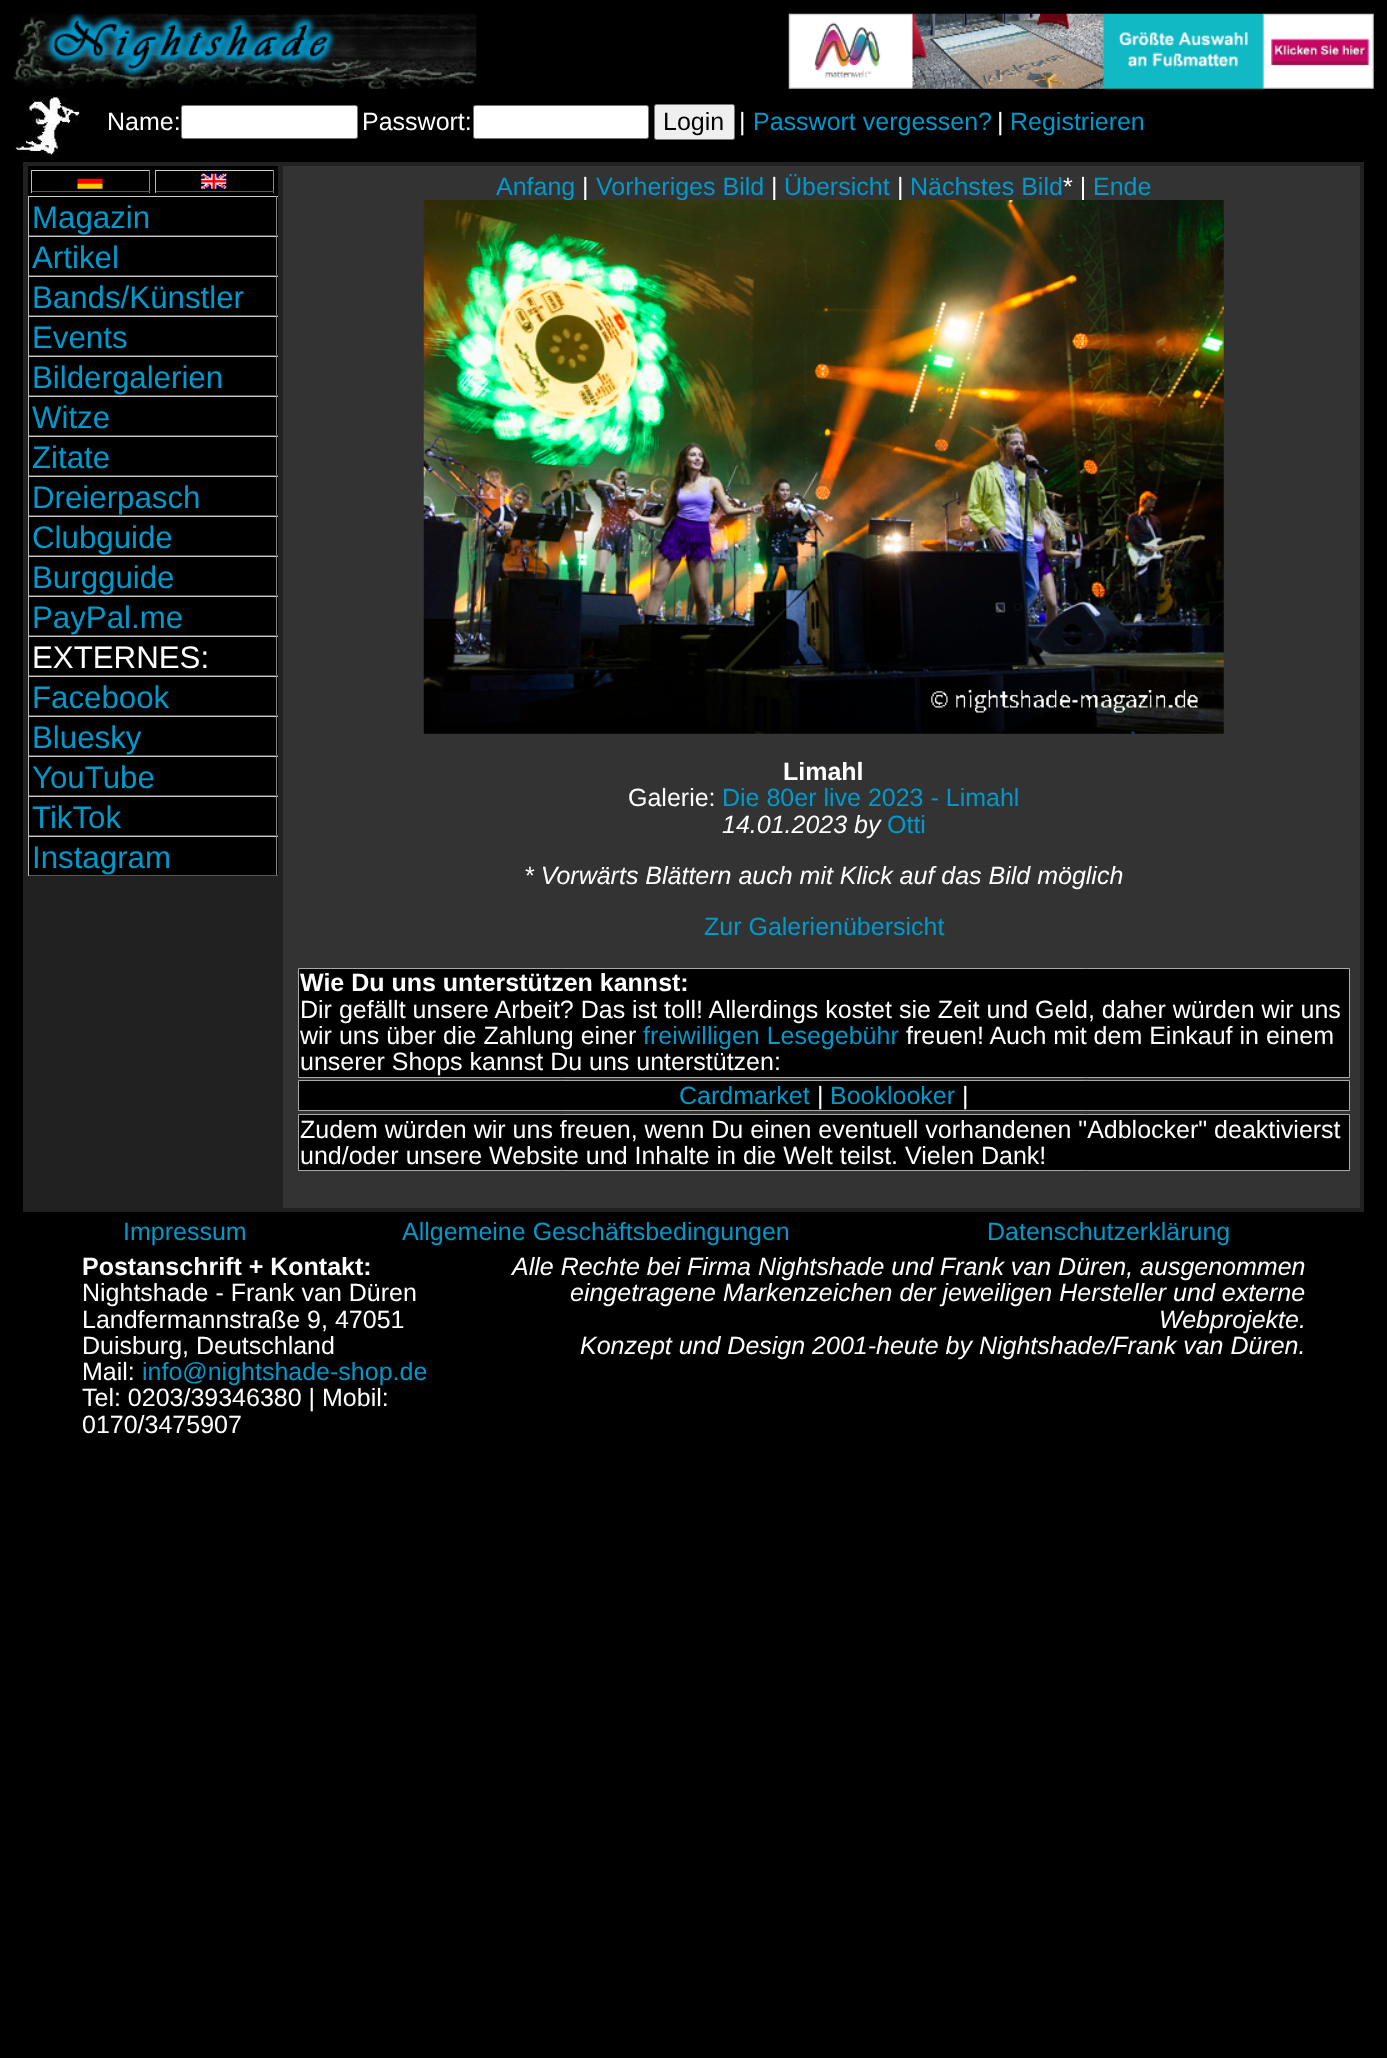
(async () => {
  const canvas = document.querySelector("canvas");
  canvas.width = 1387;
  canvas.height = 2058;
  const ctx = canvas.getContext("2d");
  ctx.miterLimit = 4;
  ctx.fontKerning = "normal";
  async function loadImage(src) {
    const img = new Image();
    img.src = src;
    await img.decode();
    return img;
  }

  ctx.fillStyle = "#000000";
  ctx.fillRect(0, 0, 1387, 2058);
  ctx.drawImage(await loadImage("img/1.png"), 13, 13, 464, 76);
  ctx.drawImage(await loadImage("img/2.png"), 788, 13, 586, 76);
  ctx.drawImage(await loadImage("img/3.png"), 14, 96, 67, 63);
  ctx.fillStyle = "#ffffff";
  ctx.beginPath();
  ctx.roundRect(181.5, 105.5, 176, 33, 2);
  ctx.fill();
  ctx.strokeStyle = "#767676";
  ctx.stroke();
  ctx.beginPath();
  ctx.roundRect(473.5, 105.5, 175, 33, 2);
  ctx.fill();
  ctx.stroke();
  ctx.fillStyle = "#efefef";
  ctx.beginPath();
  ctx.roundRect(654.5, 104.5, 80, 35, 2);
  ctx.fill();
  ctx.stroke();
  for (const [x, y, w, h, color] of [
    [23, 162, 1341, 1050, "#212121"],
    [28, 166, 250, 30, "#000000"],
    [31, 170, 119, 1, "#cccccc"],
    [149, 170, 1, 23, "#888888"],
    [31, 191, 119, 1, "#555555"],
    [31, 170, 1, 23, "#bbbbbb"],
  ]) {
    ctx.fillStyle = color;
    ctx.fillRect(x, y, w, h);
  }
  ctx.drawImage(await loadImage("img/4.png"), 77, 178, 26, 11);
  for (const [x, y, w, h, color] of [
    [155, 170, 119, 1, "#cccccc"],
    [273, 170, 1, 23, "#888888"],
    [155, 191, 119, 1, "#555555"],
    [155, 170, 1, 23, "#bbbbbb"],
  ]) {
    ctx.fillStyle = color;
    ctx.fillRect(x, y, w, h);
  }
  ctx.drawImage(await loadImage("img/5.png"), 201, 173, 26, 16);
  for (const [x, y, w, h, color] of [
    [29, 197, 249, 38, "#000000"],
    [28, 196, 250, 1, "#cccccc"],
    [276, 196, 1, 40, "#888888"],
    [28, 235, 250, 1, "#555555"],
    [28, 196, 1, 40, "#bbbbbb"],
    [29, 237, 249, 38, "#000000"],
    [28, 236, 250, 1, "#cccccc"],
    [276, 236, 1, 40, "#888888"],
    [28, 275, 250, 1, "#555555"],
    [28, 236, 1, 40, "#bbbbbb"],
    [29, 277, 249, 38, "#000000"],
    [28, 276, 250, 1, "#cccccc"],
    [276, 276, 1, 40, "#888888"],
    [28, 315, 250, 1, "#555555"],
    [28, 276, 1, 40, "#bbbbbb"],
    [29, 317, 249, 38, "#000000"],
    [28, 316, 250, 1, "#cccccc"],
    [276, 316, 1, 40, "#888888"],
    [28, 355, 250, 1, "#555555"],
    [28, 316, 1, 40, "#bbbbbb"],
    [29, 357, 249, 38, "#000000"],
    [28, 356, 250, 1, "#cccccc"],
    [276, 356, 1, 40, "#888888"],
    [28, 395, 250, 1, "#555555"],
    [28, 356, 1, 40, "#bbbbbb"],
    [29, 397, 249, 38, "#000000"],
    [28, 396, 250, 1, "#cccccc"],
    [276, 396, 1, 40, "#888888"],
    [28, 435, 250, 1, "#555555"],
    [28, 396, 1, 40, "#bbbbbb"],
    [29, 437, 249, 38, "#000000"],
    [28, 436, 250, 1, "#cccccc"],
    [276, 436, 1, 40, "#888888"],
    [28, 475, 250, 1, "#555555"],
    [28, 436, 1, 40, "#bbbbbb"],
    [29, 477, 249, 38, "#000000"],
    [28, 476, 250, 1, "#cccccc"],
    [276, 476, 1, 40, "#888888"],
    [28, 515, 250, 1, "#555555"],
    [28, 476, 1, 40, "#bbbbbb"],
    [29, 517, 249, 38, "#000000"],
    [28, 516, 250, 1, "#cccccc"],
    [276, 516, 1, 40, "#888888"],
    [28, 555, 250, 1, "#555555"],
    [28, 516, 1, 40, "#bbbbbb"],
    [29, 557, 249, 38, "#000000"],
    [28, 556, 250, 1, "#cccccc"],
    [276, 556, 1, 40, "#888888"],
    [28, 595, 250, 1, "#555555"],
    [28, 556, 1, 40, "#bbbbbb"],
    [29, 597, 249, 38, "#000000"],
    [28, 596, 250, 1, "#cccccc"],
    [276, 596, 1, 40, "#888888"],
    [28, 635, 250, 1, "#555555"],
    [28, 596, 1, 40, "#bbbbbb"],
    [29, 637, 249, 38, "#000000"],
    [28, 636, 250, 1, "#cccccc"],
    [276, 636, 1, 40, "#888888"],
    [28, 675, 250, 1, "#555555"],
    [28, 636, 1, 40, "#bbbbbb"],
    [29, 677, 249, 38, "#000000"],
    [28, 676, 250, 1, "#cccccc"],
    [276, 676, 1, 40, "#888888"],
    [28, 715, 250, 1, "#555555"],
    [28, 676, 1, 40, "#bbbbbb"],
    [29, 717, 249, 38, "#000000"],
    [28, 716, 250, 1, "#cccccc"],
    [276, 716, 1, 40, "#888888"],
    [28, 755, 250, 1, "#555555"],
    [28, 716, 1, 40, "#bbbbbb"],
    [29, 757, 249, 38, "#000000"],
    [28, 756, 250, 1, "#cccccc"],
    [276, 756, 1, 40, "#888888"],
    [28, 795, 250, 1, "#555555"],
    [28, 756, 1, 40, "#bbbbbb"],
    [29, 797, 249, 38, "#000000"],
    [28, 796, 250, 1, "#cccccc"],
    [276, 796, 1, 40, "#888888"],
    [28, 835, 250, 1, "#555555"],
    [28, 796, 1, 40, "#bbbbbb"],
    [29, 837, 249, 38, "#000000"],
    [28, 836, 250, 1, "#cccccc"],
    [276, 836, 1, 40, "#888888"],
    [28, 875, 250, 1, "#555555"],
    [28, 836, 1, 40, "#bbbbbb"],
    [283, 166, 1077, 1042, "#333333"],
  ]) {
    ctx.fillStyle = color;
    ctx.fillRect(x, y, w, h);
  }
  ctx.fillStyle = "#000000";
  ctx.beginPath();
  ctx.rect(298.5, 968.5, 1051, 109);
  ctx.fill();
  ctx.strokeStyle = "#a9a9a9";
  ctx.stroke();
  ctx.beginPath();
  ctx.rect(298.5, 1080.5, 1051, 30);
  ctx.fill();
  ctx.stroke();
  ctx.beginPath();
  ctx.rect(298.5, 1114.5, 1051, 56);
  ctx.fill();
  ctx.stroke();
  ctx.font = "25px Liberation Sans";
  ctx.fillStyle = "#ffffff";
  ctx.fillText("Name:", 107, 130);
  ctx.fillText("Passwort:", 362, 130);
  ctx.fillStyle = "#000000";
  ctx.fillText("Login", 663, 130);
  ctx.fillStyle = "#ffffff";
  ctx.fillText("|", 739, 130);
  ctx.fillStyle = "#0099cc";
  ctx.fillText("Passwort vergessen?", 753, 130);
  ctx.fillStyle = "#ffffff";
  ctx.fillText("|", 997, 130);
  ctx.fillStyle = "#0099cc";
  ctx.fillText("Registrieren", 1010, 130);
  ctx.font = "31.25px Liberation Sans";
  for (const [text, x, y] of [
    ["Magazin", 32, 228],
    ["Artikel", 32, 268],
    ["Bands/Künstler", 32, 308],
    ["Events", 32, 348],
    ["Bildergalerien", 32, 388],
    ["Witze", 32, 428],
    ["Zitate", 32, 468],
    ["Dreierpasch", 32, 508],
    ["Clubguide", 32, 548],
    ["Burgguide", 32, 588],
    ["PayPal.me", 32, 628],
  ]) {
    ctx.fillText(text, x, y);
  }
  ctx.fillStyle = "#ffffff";
  ctx.fillText("EXTERNES:", 32, 668);
  ctx.fillStyle = "#0099cc";
  for (const [text, x, y] of [
    ["Facebook", 32, 708],
    ["Bluesky", 32, 748],
    ["YouTube", 32, 788],
    ["TikTok", 32, 828],
    ["Instagram", 32, 868],
  ]) {
    ctx.fillText(text, x, y);
  }
  ctx.font = "25px Liberation Sans";
  ctx.fillText("Anfang", 496, 195);
  ctx.fillStyle = "#ffffff";
  ctx.fillText("|", 582, 195);
  ctx.fillStyle = "#0099cc";
  ctx.fillText("Vorheriges Bild", 596, 195);
  ctx.fillStyle = "#ffffff";
  ctx.fillText("|", 771, 195);
  ctx.fillStyle = "#0099cc";
  ctx.fillText("Übersicht", 784, 195);
  ctx.fillStyle = "#ffffff";
  ctx.fillText("|", 897, 195);
  ctx.fillStyle = "#0099cc";
  ctx.fillText("Nächstes Bild", 910, 195);
  ctx.fillStyle = "#ffffff";
  ctx.fillText("* |", 1063, 195);
  ctx.fillStyle = "#0099cc";
  ctx.fillText("Ende", 1093, 195);
  ctx.drawImage(await loadImage("img/6.png"), 423, 200, 801, 534);
  ctx.font = "bold 25px Liberation Sans";
  ctx.fillStyle = "#ffffff";
  ctx.fillText("Limahl", 783, 780);
  ctx.font = "25px Liberation Sans";
  ctx.fillText("Galerie:", 628, 806);
  ctx.fillStyle = "#0099cc";
  ctx.fillText("Die 80er live 2023 - Limahl", 722, 806);
  ctx.font = "italic 25px Liberation Sans";
  ctx.fillStyle = "#ffffff";
  ctx.fillText("14.01.2023 by", 722, 833);
  ctx.font = "25px Liberation Sans";
  ctx.fillStyle = "#0099cc";
  ctx.fillText("Otti", 887, 833);
  ctx.font = "italic 25px Liberation Sans";
  ctx.fillStyle = "#ffffff";
  ctx.fillText("* Vorwärts Blättern auch mit Klick auf das Bild möglich", 524, 884);
  ctx.font = "25px Liberation Sans";
  ctx.fillStyle = "#0099cc";
  ctx.fillText("Zur Galerienübersicht", 704, 935);
  ctx.font = "bold 25px Liberation Sans";
  ctx.fillStyle = "#ffffff";
  ctx.fillText("Wie Du uns unterstützen kannst:", 300, 991);
  ctx.font = "25px Liberation Sans";
  ctx.fillText("Dir gefällt unsere Arbeit? Das ist toll! Allerdings kostet sie Zeit und Geld, daher würden wir uns", 300, 1018);
  ctx.fillText("wir uns über die Zahlung einer", 300, 1044);
  ctx.fillStyle = "#0099cc";
  ctx.fillText("freiwilligen Lesegebühr", 643, 1044);
  ctx.fillStyle = "#ffffff";
  ctx.fillText("freuen! Auch mit dem Einkauf in einem", 906, 1044);
  ctx.fillText("unserer Shops kannst Du uns unterstützen:", 300, 1070);
  ctx.fillStyle = "#0099cc";
  ctx.fillText("Cardmarket", 679, 1104);
  ctx.fillStyle = "#ffffff";
  ctx.fillText("|", 817, 1104);
  ctx.fillStyle = "#0099cc";
  ctx.fillText("Booklooker", 830, 1104);
  ctx.fillStyle = "#ffffff";
  for (const [text, x, y] of [
    ["|", 962, 1104],
    ["Zudem würden wir uns freuen, wenn Du einen eventuell vorhandenen \"Adblocker\" deaktivierst", 300, 1138],
    ["und/oder unsere Website und Inhalte in die Welt teilst. Vielen Dank!", 300, 1164],
  ]) {
    ctx.fillText(text, x, y);
  }
  ctx.fillStyle = "#0099cc";
  for (const [text, x, y] of [
    ["Impressum", 123, 1240],
    ["Allgemeine Geschäftsbedingungen", 402, 1240],
    ["Datenschutzerklärung", 987, 1240],
  ]) {
    ctx.fillText(text, x, y);
  }
  ctx.font = "bold 25px Liberation Sans";
  ctx.fillStyle = "#ffffff";
  ctx.fillText("Postanschrift + Kontakt:", 82, 1275);
  ctx.font = "25px Liberation Sans";
  for (const [text, x, y] of [
    ["Nightshade - Frank van Düren", 82, 1301],
    ["Landfermannstraße 9, 47051", 82, 1328],
    ["Duisburg, Deutschland", 82, 1354],
    ["Mail:", 82, 1380],
  ]) {
    ctx.fillText(text, x, y);
  }
  ctx.fillStyle = "#0099cc";
  ctx.fillText("info@nightshade-shop.de", 142, 1380);
  ctx.fillStyle = "#ffffff";
  ctx.fillText("Tel: 0203/39346380 | Mobil:", 82, 1406);
  ctx.fillText("0170/3475907", 82, 1433);
  ctx.font = "italic 25px Liberation Sans";
  for (const [text, x, y] of [
    ["Alle Rechte bei Firma Nightshade und Frank van Düren, ausgenommen", 512, 1275],
    ["eingetragene Markenzeichen der jeweiligen Hersteller und externe", 570, 1301],
    ["Webprojekte.", 1159, 1328],
    ["Konzept und Design 2001-heute by Nightshade/Frank van Düren.", 580, 1354],
  ]) {
    ctx.fillText(text, x, y);
  }
})();
